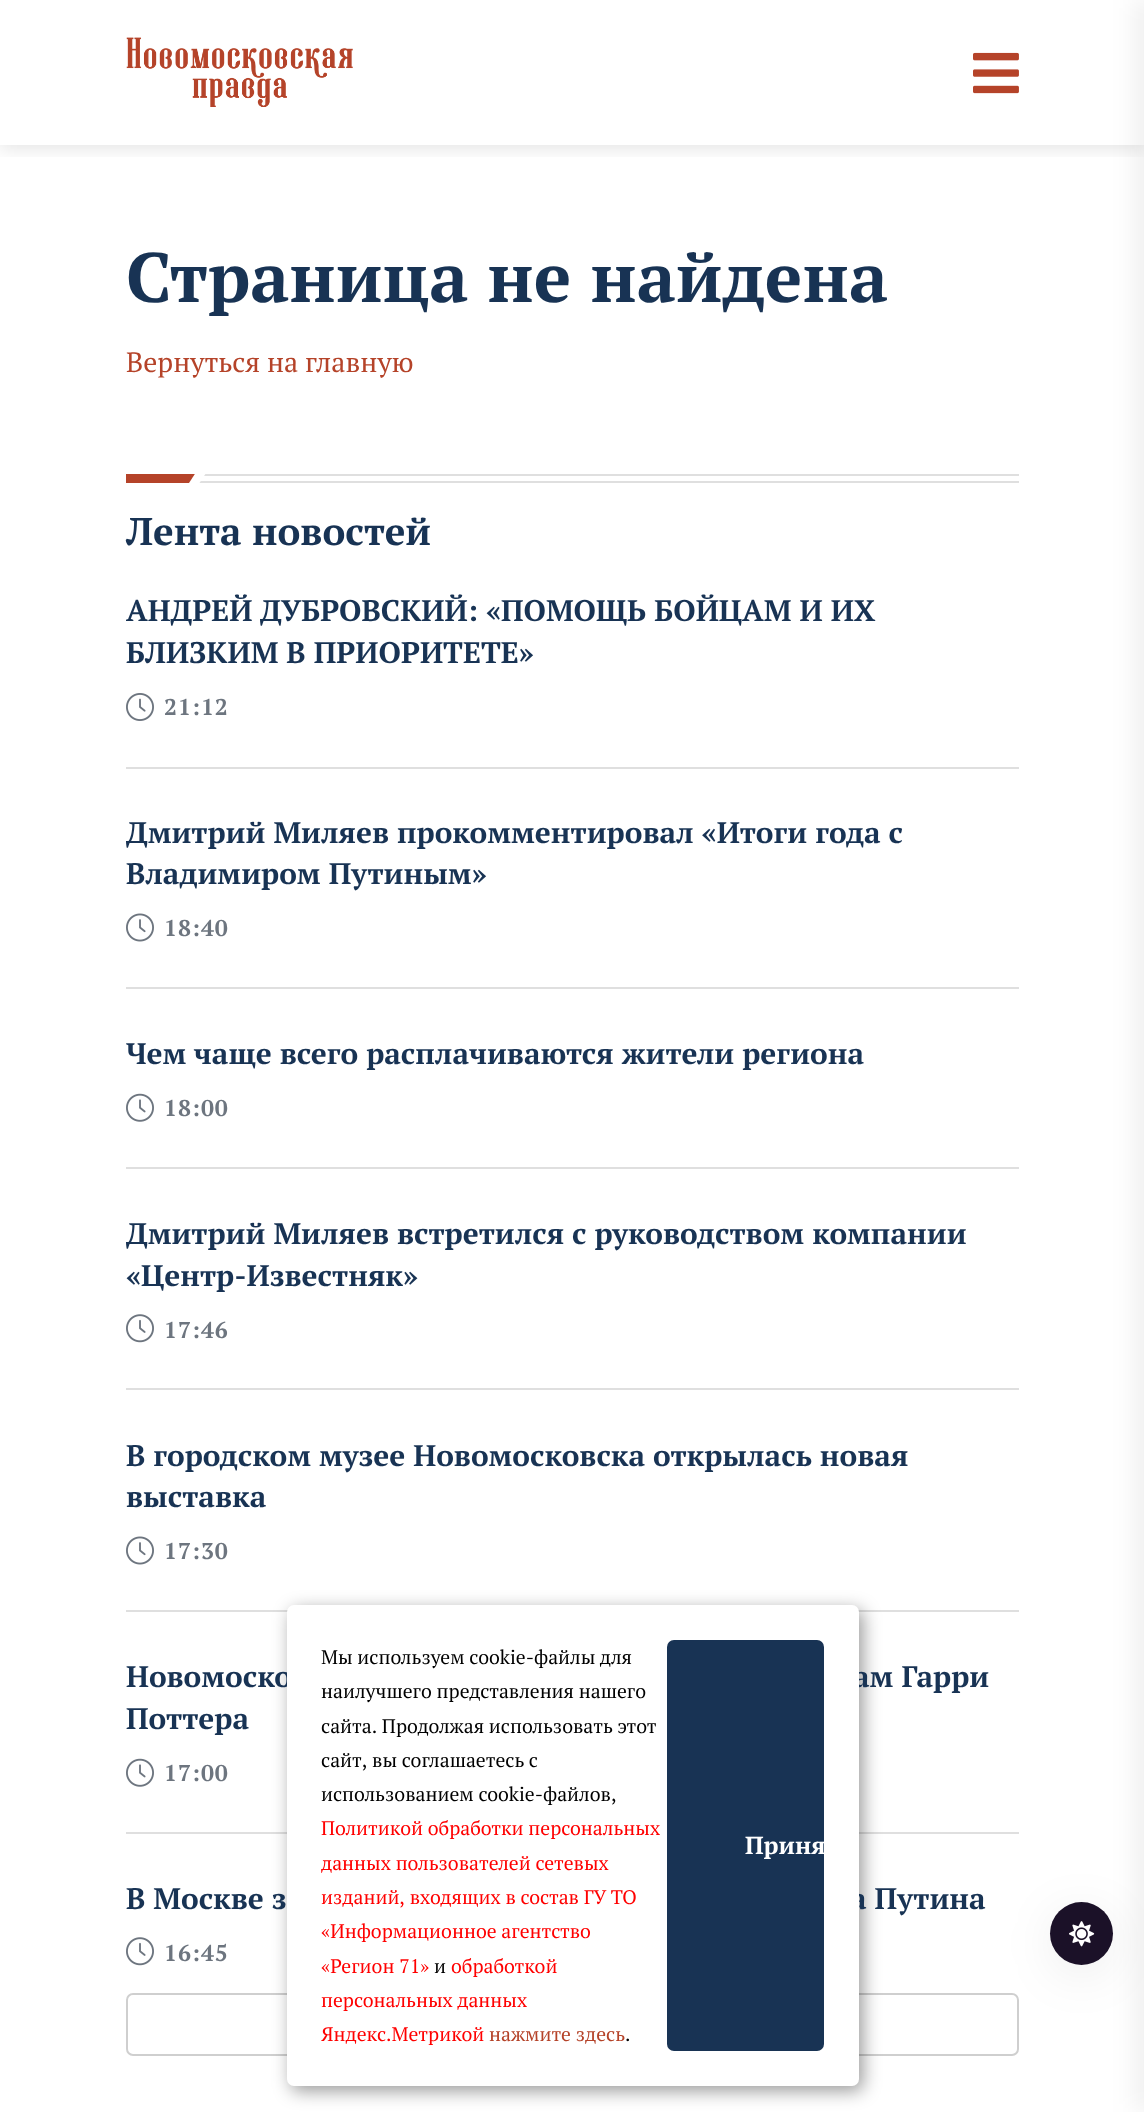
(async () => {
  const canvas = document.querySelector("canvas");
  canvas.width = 1144;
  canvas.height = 2112;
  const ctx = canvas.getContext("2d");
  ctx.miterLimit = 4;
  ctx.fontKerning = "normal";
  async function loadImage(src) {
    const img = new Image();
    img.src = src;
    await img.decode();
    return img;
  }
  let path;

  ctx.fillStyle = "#ffffff";
  ctx.fillRect(0, 0, 1144, 2112);
  ctx.save();
  ctx.beginPath();
  ctx.rect(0, 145, 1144, 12);
  ctx.clip();
  ctx.fillStyle = "rgba(0, 0, 0, 0.1)";
  ctx.filter = "blur(9px)";
  ctx.beginPath();
  ctx.rect(0, 4, 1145, 145);
  ctx.fill();
  ctx.filter = "none";
  ctx.restore();
  ctx.drawImage(await loadImage("img/1.png"), 126, 37, 227, 70);
  ctx.drawImage(await loadImage("img/2.png"), 973, 52, 46, 42);
  ctx.beginPath();
  ctx.roundRect(127, 1994, 891, 61, 6);
  ctx.strokeStyle = "#cfcfcf";
  ctx.lineWidth = 2;
  ctx.stroke();
  ctx.fillStyle = "rgba(0, 0, 0, 0.08)";
  ctx.filter = "blur(25px)";
  ctx.beginPath();
  ctx.roundRect(1052, 1913, 59, 61, 29.5);
  ctx.fill();
  ctx.filter = "none";
  ctx.fillStyle = "#1b1128";
  ctx.beginPath();
  ctx.arc(1081.5, 1933.5, 31.5, 0, Math.PI * 2);
  ctx.fill();
  ctx.fillStyle = "rgba(0, 0, 0, 0.06)";
  ctx.filter = "blur(12px)";
  ctx.beginPath();
  ctx.rect(1134, 0, 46, 2112);
  ctx.fill();
  ctx.filter = "none";
  for (const [x, y, w, h, color] of [
    [204, 474, 815, 2, "#dfdfdf"],
    [199, 481, 820, 2, "#dfdfdf"],
    [126, 474, 69, 9, "#b54329"],
  ]) {
    ctx.fillStyle = color;
    ctx.fillRect(x, y, w, h);
  }
  ctx.fillStyle = "#ffffff";
  path = new Path2D("M189 483L195.5 473H206L199.5 483Z");
  ctx.fill(path);
  ctx.fillStyle = "#dfdfdf";
  ctx.fillRect(126, 767, 893, 2);
  ctx.drawImage(await loadImage("img/3.png"), 126, 693, 28, 28);
  ctx.fillRect(126, 987, 893, 2);
  ctx.drawImage(await loadImage("img/4.png"), 126, 913, 28, 29);
  ctx.fillRect(126, 1167, 893, 2);
  ctx.drawImage(await loadImage("img/5.png"), 126, 1093, 28, 29);
  ctx.fillRect(126, 1388, 893, 2);
  ctx.drawImage(await loadImage("img/6.png"), 126, 1314, 28, 29);
  ctx.fillRect(126, 1610, 893, 2);
  ctx.drawImage(await loadImage("img/4.png"), 126, 1536, 28, 29);
  ctx.fillRect(126, 1832, 893, 2);
  ctx.drawImage(await loadImage("img/5.png"), 126, 1758, 28, 29);
  ctx.drawImage(await loadImage("img/6.png"), 126, 1937, 28, 29);
  ctx.fillStyle = "rgba(0, 0, 0, 0.4)";
  ctx.filter = "blur(9px)";
  ctx.beginPath();
  ctx.roundRect(291, 1610, 572, 481, 7);
  ctx.fill();
  ctx.filter = "none";
  ctx.drawImage(await loadImage("img/7.png"), 1069, 1921, 26, 26);
  ctx.font = "bold 70px PT Serif";
  ctx.fillStyle = "#183354";
  ctx.fillText("Страница не найдена", 126, 302);
  ctx.font = "28px PT Serif";
  ctx.fillStyle = "#b54329";
  ctx.fillText("Вернуться на главную", 126, 372);
  ctx.font = "bold 38.5px PT Serif";
  ctx.fillStyle = "#183354";
  ctx.fillText("Лента новостей", 126, 545);
  ctx.font = "bold 29.75px PT Serif";
  ctx.fillText("АНДРЕЙ ДУБРОВСКИЙ: «ПОМОЩЬ БОЙЦАМ И ИХ", 126, 621);
  ctx.fillText("БЛИЗКИМ В ПРИОРИТЕТЕ»", 126, 663);
  ctx.letterSpacing = "1px";
  ctx.font = "bold 23px PT Serif";
  ctx.fillStyle = "#6d757f";
  ctx.fillText("21:12", 164, 715);
  ctx.letterSpacing = "0px";
  ctx.font = "bold 29.75px PT Serif";
  ctx.fillStyle = "#183354";
  ctx.fillText("Дмитрий Миляев прокомментировал «Итоги года с", 126, 843);
  ctx.fillText("Владимиром Путиным»", 126, 884);
  ctx.letterSpacing = "1px";
  ctx.font = "bold 23px PT Serif";
  ctx.fillStyle = "#6d757f";
  ctx.fillText("18:40", 164, 936);
  ctx.letterSpacing = "0px";
  ctx.font = "bold 29.75px PT Serif";
  ctx.fillStyle = "#183354";
  ctx.fillText("Чем чаще всего расплачиваются жители региона", 126, 1064);
  ctx.letterSpacing = "1px";
  ctx.font = "bold 23px PT Serif";
  ctx.fillStyle = "#6d757f";
  ctx.fillText("18:00", 164, 1116);
  ctx.letterSpacing = "0px";
  ctx.font = "bold 29.75px PT Serif";
  ctx.fillStyle = "#183354";
  ctx.fillText("Дмитрий Миляев встретился с руководством компании", 126, 1244);
  ctx.fillText("«Центр-Известняк»", 126, 1286);
  ctx.letterSpacing = "1px";
  ctx.font = "bold 23px PT Serif";
  ctx.fillStyle = "#6d757f";
  ctx.fillText("17:46", 164, 1338);
  ctx.letterSpacing = "0px";
  ctx.font = "bold 29.75px PT Serif";
  ctx.fillStyle = "#183354";
  ctx.fillText("В городском музее Новомосковска открылась новая", 126, 1466);
  ctx.fillText("выставка", 126, 1507);
  ctx.letterSpacing = "1px";
  ctx.font = "bold 23px PT Serif";
  ctx.fillStyle = "#6d757f";
  ctx.fillText("17:30", 164, 1559);
  ctx.letterSpacing = "0px";
  ctx.font = "bold 29.75px PT Serif";
  ctx.fillStyle = "#183354";
  for (const [text, x, y] of [
    ["Новомоско", 126, 1687],
    ["ам Гарри", 853, 1687],
    ["Поттера", 126, 1729],
  ]) {
    ctx.fillText(text, x, y);
  }
  ctx.letterSpacing = "1px";
  ctx.font = "bold 23px PT Serif";
  ctx.fillStyle = "#6d757f";
  ctx.fillText("17:00", 164, 1781);
  ctx.letterSpacing = "0px";
  ctx.font = "bold 29.75px PT Serif";
  ctx.fillStyle = "#183354";
  ctx.fillText("В Москве з", 126, 1909);
  ctx.fillText("а Путина", 850, 1909);
  ctx.letterSpacing = "1px";
  ctx.font = "bold 23px PT Serif";
  ctx.fillStyle = "#6d757f";
  ctx.fillText("16:45", 164, 1961);
  ctx.fillStyle = "#ffffff";
  ctx.beginPath();
  ctx.roundRect(287, 1605, 572, 481, 7);
  ctx.fill();
  ctx.letterSpacing = "0px";
  ctx.font = "19.6px PT Serif";
  ctx.fillStyle = "#000000";
  for (const [text, x, y] of [
    ["Мы используем cookie-файлы для", 321, 1664],
    ["наилучшего представления нашего", 321, 1698],
    ["сайта. Продолжая использовать этот", 321, 1733],
    ["сайт, вы соглашаетесь с", 321, 1767],
    ["использованием cookie-файлов,", 321, 1801],
  ]) {
    ctx.fillText(text, x, y);
  }
  ctx.fillStyle = "#ff0000";
  for (const [text, x, y] of [
    ["Политикой обработки персональных", 321, 1835],
    ["данных пользователей сетевых", 321, 1870],
    ["изданий, входящих в состав ГУ ТО", 321, 1904],
    ["«Информационное агентство", 321, 1938],
    ["«Регион 71»", 321, 1973],
  ]) {
    ctx.fillText(text, x, y);
  }
  ctx.fillStyle = "#000000";
  ctx.fillText("и", 434, 1973);
  ctx.fillStyle = "#ff0000";
  for (const [text, x, y] of [
    ["обработкой", 451, 1973],
    ["персональных данных", 321, 2007],
    ["Яндекс.Метрикой", 321, 2041],
  ]) {
    ctx.fillText(text, x, y);
  }
  ctx.fillStyle = "#b54329";
  ctx.fillText("нажмите здесь", 489, 2041);
  ctx.fillStyle = "#000000";
  ctx.fillText(".", 625, 2041);
  ctx.fillStyle = "#183354";
  ctx.beginPath();
  ctx.roundRect(667, 1640, 157, 411, 7);
  ctx.fill();
  ctx.save();
  ctx.beginPath();
  ctx.roundRect(667, 1640, 157, 411, 7);
  ctx.clip();
  ctx.font = "bold 24.5px PT Serif";
  ctx.fillStyle = "#ffffff";
  ctx.fillText("Приня", 745, 1854);
  ctx.restore();
})();
